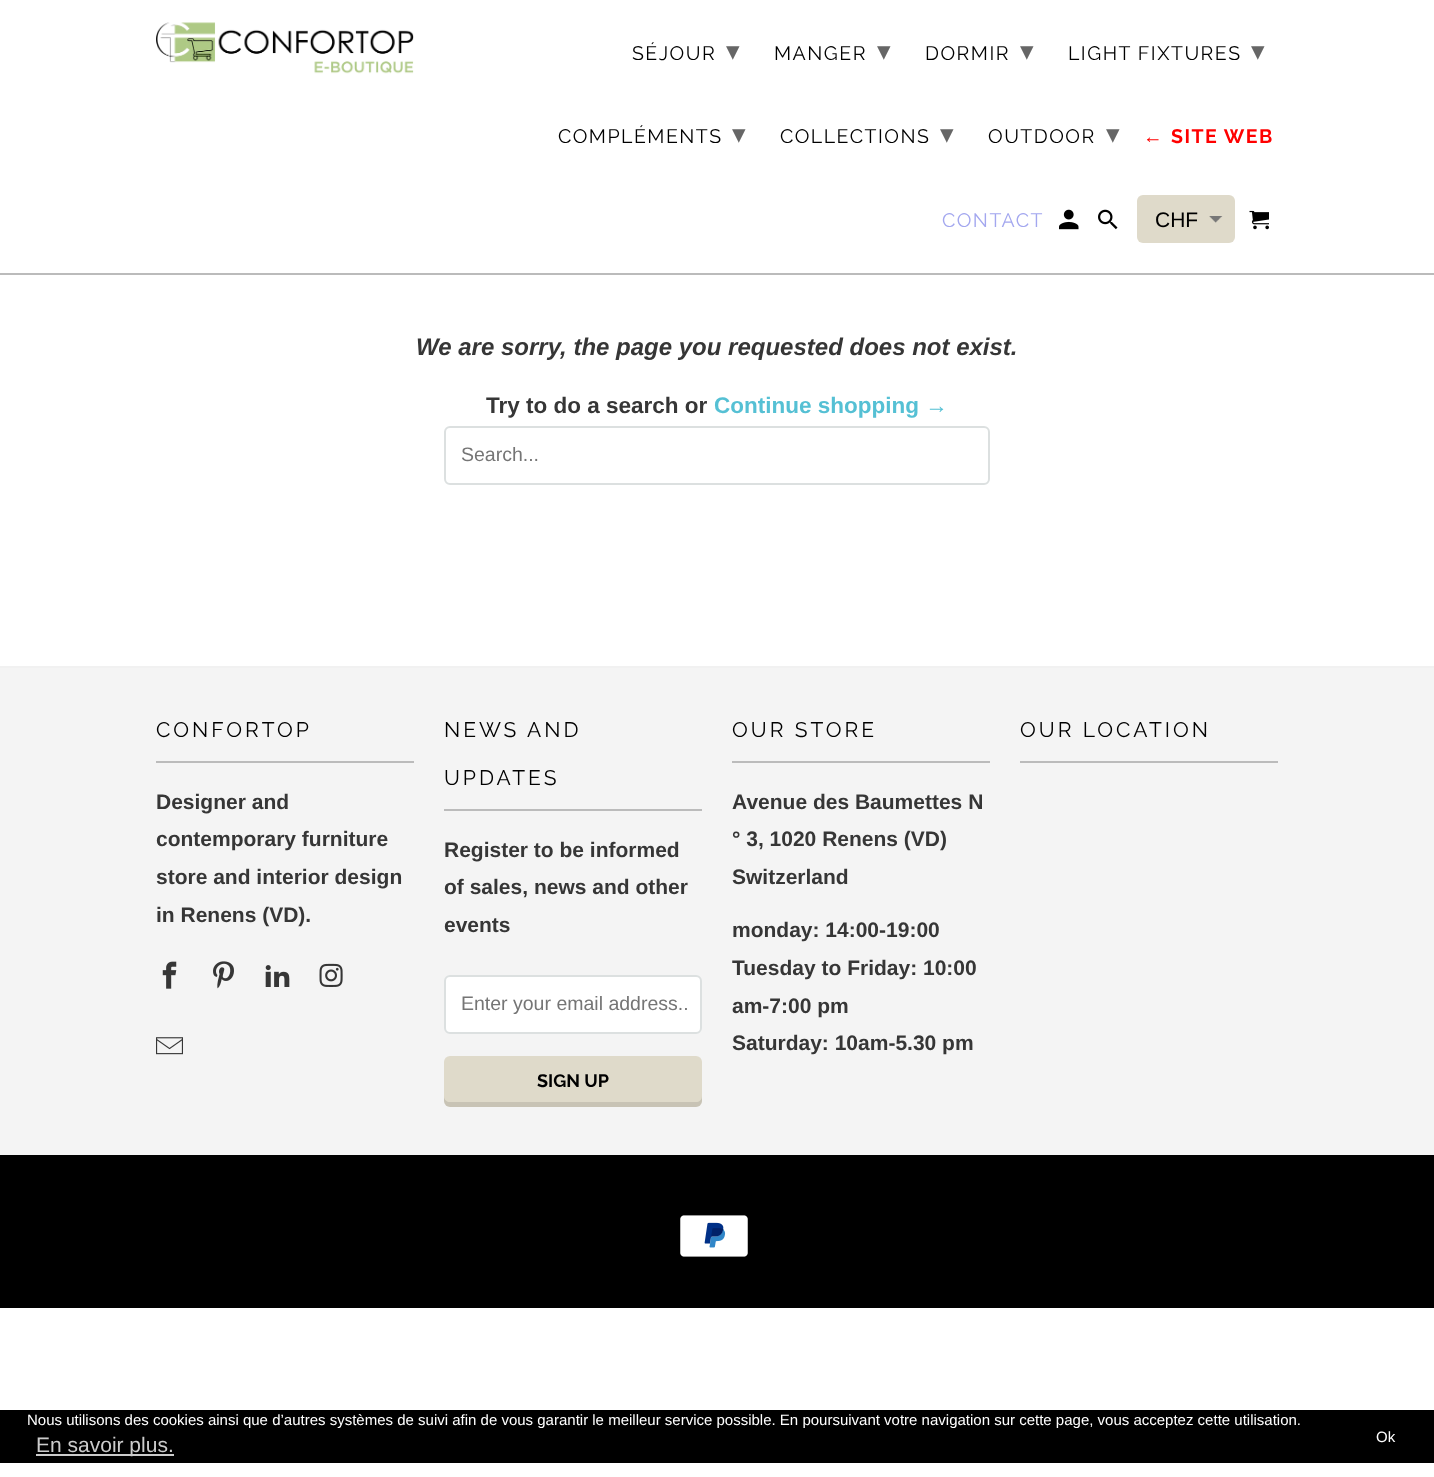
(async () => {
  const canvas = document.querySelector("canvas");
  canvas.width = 1434;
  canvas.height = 1477;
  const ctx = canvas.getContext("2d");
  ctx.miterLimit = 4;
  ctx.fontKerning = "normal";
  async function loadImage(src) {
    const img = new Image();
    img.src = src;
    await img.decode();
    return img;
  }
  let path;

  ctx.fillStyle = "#ffffff";
  ctx.fillRect(0, 0, 1434, 1477);
  ctx.fillStyle = "#bbbbbb";
  ctx.fillRect(0, 273, 1434, 2);
  ctx.drawImage(await loadImage("img/1.png"), 156, 22, 258, 52);
  ctx.drawImage(await loadImage("img/2.png"), 1059, 209, 20, 21);
  ctx.drawImage(await loadImage("img/3.png"), 1098, 209, 20, 21);
  ctx.fillStyle = "#dfdaca";
  ctx.beginPath();
  ctx.roundRect(1137, 195, 98, 48, 6);
  ctx.fill();
  ctx.drawImage(await loadImage("img/4.png"), 1209, 216, 14, 7);
  ctx.drawImage(await loadImage("img/5.png"), 1249, 210, 20, 20);
  ctx.beginPath();
  ctx.roundRect(445, 427, 544, 57, 5);
  ctx.strokeStyle = "#dce0e0";
  ctx.lineWidth = 2;
  ctx.stroke();
  for (const [x, y, w, h, color] of [
    [0, 668, 1434, 487, "#f4f4f4"],
    [0, 666, 1434, 2, "#f1f1f1"],
    [156, 761, 258, 2, "#bbbbbb"],
  ]) {
    ctx.fillStyle = color;
    ctx.fillRect(x, y, w, h);
  }
  ctx.drawImage(await loadImage("img/6.png"), 162, 961, 15, 28);
  ctx.drawImage(await loadImage("img/7.png"), 213, 961, 21, 28);
  ctx.drawImage(await loadImage("img/8.png"), 265, 965, 25, 22);
  ctx.drawImage(await loadImage("img/9.png"), 319, 963, 24, 24);
  ctx.drawImage(await loadImage("img/10.png"), 156, 1037, 27, 18);
  ctx.fillRect(444, 809, 258, 2);
  ctx.fillStyle = "#ffffff";
  ctx.beginPath();
  ctx.roundRect(445, 976, 256, 57, 5);
  ctx.fill();
  ctx.stroke();
  ctx.fillStyle = "#dfdaca";
  ctx.beginPath();
  ctx.roundRect(444, 1056, 258, 51, 6);
  ctx.fill();
  ctx.fillStyle = "rgba(0, 0, 0, 0.1)";
  path = new Path2D("M444 1096V1101C444 1104 447 1107 450 1107H696C699 1107 702 1104 702 1101V1096C702 1100 699 1102 696 1102H450C447 1102 444 1100 444 1096Z");
  ctx.fill(path);
  for (const [x, y, w, h, color] of [
    [732, 761, 258, 2, "#bbbbbb"],
    [1020, 761, 258, 2, "#bbbbbb"],
    [0, 1155, 1434, 153, "#000000"],
  ]) {
    ctx.fillStyle = color;
    ctx.fillRect(x, y, w, h);
  }
  ctx.drawImage(await loadImage("img/11.png"), 680, 1215, 68, 42);
  ctx.fillRect(0, 1410, 1434, 53);
  ctx.fillStyle = "#cccccc";
  ctx.fillRect(36, 1454, 138, 2);
  ctx.letterSpacing = "1.5px";
  ctx.font = "19.5px Raleway";
  ctx.fillStyle = "#000000";
  ctx.fillText("SÉJOUR", 632, 60);
  ctx.font = "27px DejaVu Sans";
  ctx.fillStyle = "#666666";
  ctx.fillText("▾", 726, 60);
  ctx.font = "19.5px Raleway";
  ctx.fillStyle = "#000000";
  ctx.fillText("MANGER", 774, 60);
  ctx.font = "27px DejaVu Sans";
  ctx.fillStyle = "#666666";
  ctx.fillText("▾", 877, 60);
  ctx.font = "19.5px Raleway";
  ctx.fillStyle = "#000000";
  ctx.fillText("DORMIR", 925, 60);
  ctx.font = "27px DejaVu Sans";
  ctx.fillStyle = "#666666";
  ctx.fillText("▾", 1020, 60);
  ctx.font = "19.5px Raleway";
  ctx.fillStyle = "#000000";
  ctx.fillText("LIGHT FIXTURES", 1068, 60);
  ctx.font = "27px DejaVu Sans";
  ctx.fillStyle = "#666666";
  ctx.fillText("▾", 1251, 60);
  ctx.font = "19.5px Raleway";
  ctx.fillStyle = "#000000";
  ctx.fillText("COMPLÉMENTS", 558, 143);
  ctx.font = "27px DejaVu Sans";
  ctx.fillStyle = "#666666";
  ctx.fillText("▾", 732, 143);
  ctx.font = "19.5px Raleway";
  ctx.fillStyle = "#000000";
  ctx.fillText("COLLECTIONS", 780, 143);
  ctx.font = "27px DejaVu Sans";
  ctx.fillStyle = "#666666";
  ctx.fillText("▾", 940, 143);
  ctx.font = "19.5px Raleway";
  ctx.fillStyle = "#000000";
  ctx.fillText("OUTDOOR", 988, 143);
  ctx.font = "27px DejaVu Sans";
  ctx.fillStyle = "#666666";
  ctx.fillText("▾", 1106, 143);
  ctx.font = "bold 19.5px Liberation Serif";
  ctx.fillStyle = "#ff0000";
  ctx.fillText("←", 1143, 143);
  ctx.font = "bold 19.5px Raleway";
  ctx.fillText("SITE WEB", 1171, 143);
  ctx.font = "19.5px Raleway";
  ctx.fillStyle = "#a3a7ef";
  ctx.fillText("CONTACT", 942, 227);
  ctx.letterSpacing = "0px";
  ctx.font = "21px Liberation Sans";
  ctx.fillStyle = "#000000";
  ctx.fillText("CHF", 1155, 227);
  ctx.font = "italic bold 24px Liberation Sans";
  ctx.fillStyle = "#363636";
  ctx.fillText("We are sorry, the page you requested does not exist.", 416, 355);
  ctx.font = "bold 22.5px Liberation Sans";
  ctx.fillText("Try to do a search or", 486, 413);
  ctx.fillStyle = "#55c0d4";
  ctx.fillText("Continue shopping →", 714, 413);
  ctx.font = "19.5px Liberation Sans";
  ctx.fillStyle = "#757575";
  ctx.fillText("Search...", 461, 461);
  ctx.letterSpacing = "3px";
  ctx.font = "21px Raleway";
  ctx.fillStyle = "#000000";
  ctx.fillText("CONFORTOP", 156, 737);
  ctx.letterSpacing = "0px";
  ctx.font = "bold 21px Liberation Sans";
  ctx.fillStyle = "#363636";
  for (const [text, x, y] of [
    ["Designer and", 156, 809],
    ["contemporary furniture", 156, 846],
    ["store and interior design", 156, 884],
    ["in Renens (VD).", 156, 922],
  ]) {
    ctx.fillText(text, x, y);
  }
  ctx.letterSpacing = "3px";
  ctx.font = "21px Raleway";
  ctx.fillStyle = "#000000";
  ctx.fillText("NEWS AND", 444, 737);
  ctx.fillText("UPDATES", 444, 785);
  ctx.letterSpacing = "0px";
  ctx.font = "bold 21px Liberation Sans";
  ctx.fillStyle = "#363636";
  for (const [text, x, y] of [
    ["Register to be informed", 444, 857],
    ["of sales, news and other", 444, 894],
    ["events", 444, 932],
  ]) {
    ctx.fillText(text, x, y);
  }
  ctx.font = "19.5px Liberation Sans";
  ctx.fillStyle = "#757575";
  ctx.fillText("Enter your email address..", 461, 1010);
  ctx.font = "bold 18px Raleway";
  ctx.fillStyle = "#000000";
  ctx.fillText("SIGN UP", 537, 1087);
  ctx.letterSpacing = "3px";
  ctx.font = "21px Raleway";
  ctx.fillText("OUR STORE", 732, 737);
  ctx.letterSpacing = "0px";
  ctx.font = "bold 21px Liberation Sans";
  ctx.fillStyle = "#363636";
  for (const [text, x, y] of [
    ["Avenue des Baumettes N", 732, 809],
    ["° 3, 1020 Renens (VD)", 732, 846],
    ["Switzerland", 732, 884],
    ["monday: 14:00-19:00", 732, 937],
    ["Tuesday to Friday: 10:00", 732, 975],
    ["am-7:00 pm", 732, 1013],
    ["Saturday: 10am-5.30 pm", 732, 1050],
  ]) {
    ctx.fillText(text, x, y);
  }
  ctx.letterSpacing = "3px";
  ctx.font = "21px Raleway";
  ctx.fillStyle = "#000000";
  ctx.fillText("OUR LOCATION", 1020, 737);
  ctx.letterSpacing = "0px";
  ctx.font = "15px Liberation Sans";
  ctx.fillStyle = "#ffffff";
  ctx.fillText("Nous utilisons des cookies ainsi que d’autres systèmes de suivi afin de vous garantir le meilleur service possible. En poursuivant votre navigation sur cette page, vous acceptez cette utilisation.", 27, 1425);
  ctx.font = "21px Liberation Sans";
  ctx.fillStyle = "#cccccc";
  ctx.fillText("En savoir plus.", 36, 1452);
  ctx.font = "15px Liberation Sans";
  ctx.fillStyle = "#ffffff";
  ctx.fillText("Ok", 1376, 1442);
})();
